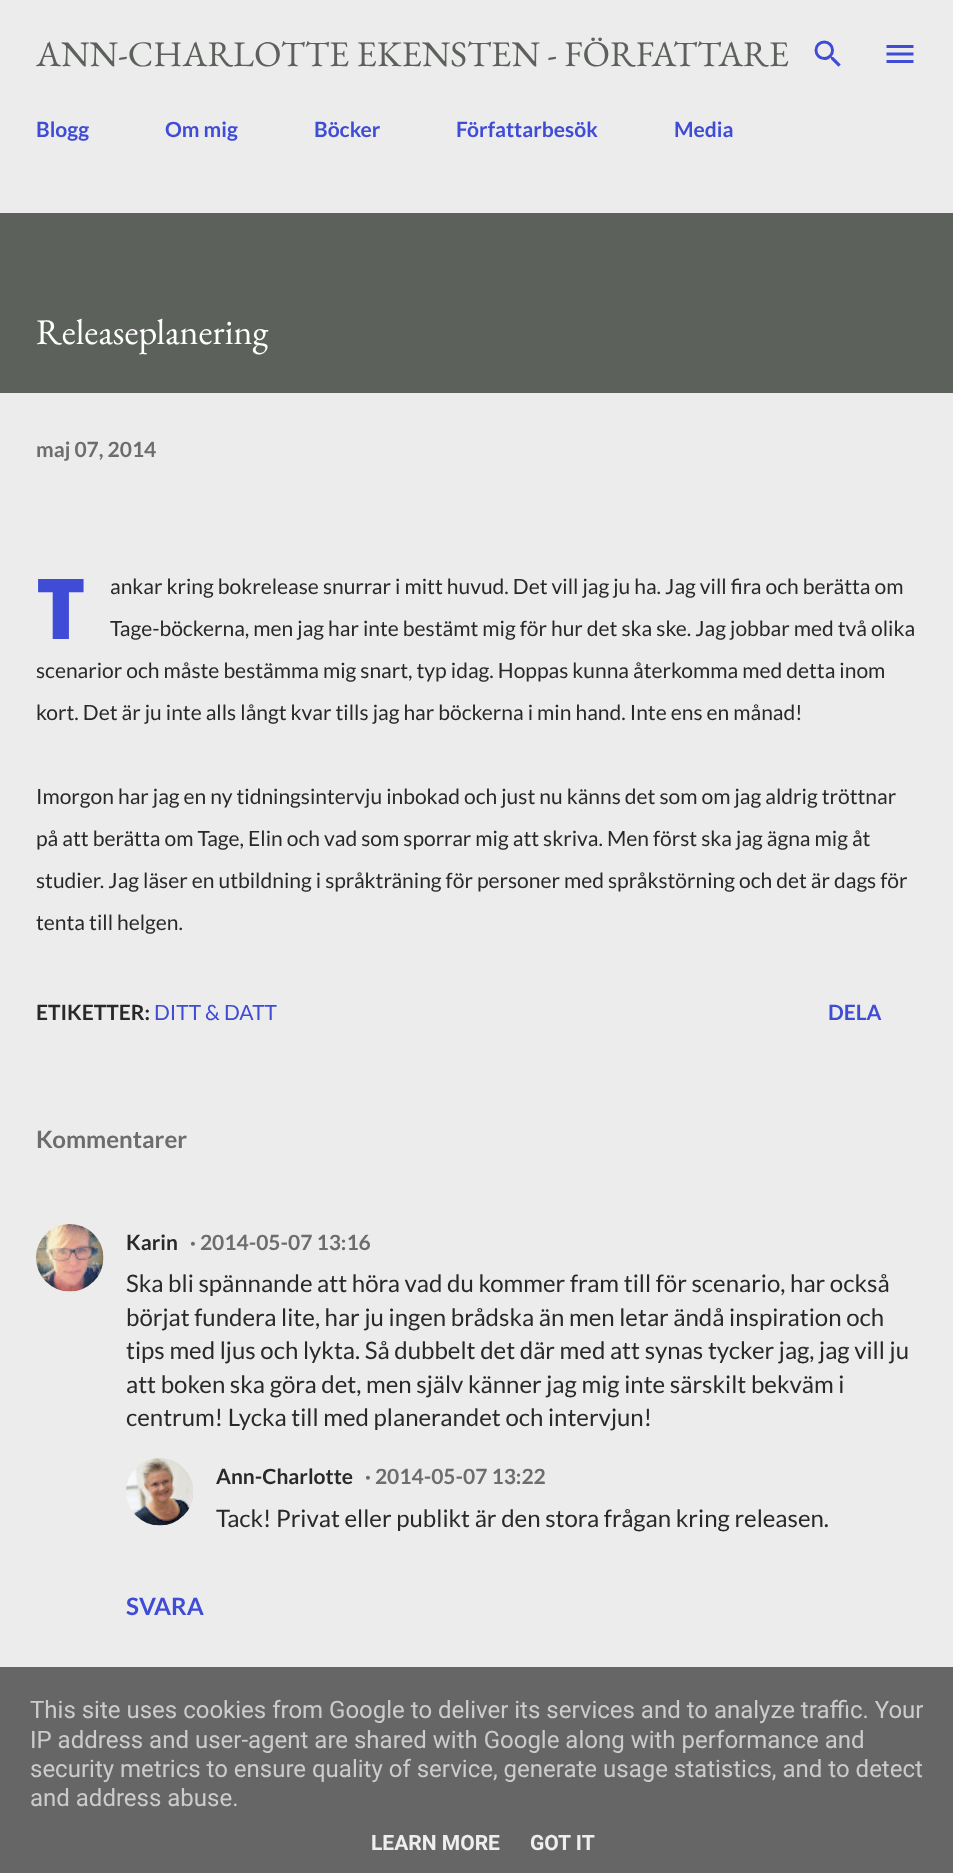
(async () => {
  const canvas = document.querySelector("canvas");
  canvas.width = 953;
  canvas.height = 1873;
  const ctx = canvas.getContext("2d");
  ctx.miterLimit = 4;
  ctx.fontKerning = "normal";
  async function loadImage(src) {
    const img = new Image();
    img.src = src;
    await img.decode();
    return img;
  }

  ctx.fillStyle = "#ececec";
  ctx.fillRect(0, 0, 953, 1873);
  ctx.drawImage(await loadImage("img/1.png"), 814, 40, 27, 27);
  ctx.drawImage(await loadImage("img/2.png"), 886, 45, 28, 18);
  ctx.fillStyle = "#5d615c";
  ctx.fillRect(0, 213, 953, 180);
  ctx.drawImage(await loadImage("img/3.png"), 36, 1224, 68, 68);
  ctx.drawImage(await loadImage("img/4.png"), 126, 1458, 67, 68);
  ctx.fillStyle = "#666666";
  ctx.fillRect(0, 1667, 953, 206);
  ctx.font = "36px EB Garamond";
  ctx.fillStyle = "#5d615c";
  ctx.fillText("ANN-CHARLOTTE EKENSTEN - FÖRFATTARE", 36, 66);
  ctx.font = "bold 21px Lato";
  ctx.fillStyle = "#3f4cd6";
  for (const [text, x, y] of [
    ["Blogg", 36, 137],
    ["Om mig", 165, 137],
    ["Böcker", 314, 137],
    ["Författarbesök", 456, 137],
    ["Media", 674, 137],
  ]) {
    ctx.fillText(text, x, y);
  }
  ctx.font = "36px EB Garamond";
  ctx.fillStyle = "#ffffff";
  ctx.fillText("Releaseplanering", 36, 344);
  ctx.font = "bold 21px Lato";
  ctx.fillStyle = "#6d6d6d";
  ctx.fillText("maj 07, 2014", 36, 457);
  ctx.font = "900 84px Noto Sans";
  ctx.fillStyle = "#3f4cd6";
  ctx.fillText("T", 36, 639);
  ctx.font = "21px Lato";
  ctx.fillStyle = "#292929";
  for (const [text, x, y] of [
    ["ankar kring bokrelease snurrar i mitt huvud. Det vill jag ju ha. Jag vill fira och berätta om", 110, 594],
    ["Tage-böckerna, men jag har inte bestämt mig för hur det ska ske. Jag jobbar med två olika", 110, 636],
    ["scenarior och måste bestämma mig snart, typ idag. Hoppas kunna återkomma med detta inom", 36, 678],
    ["kort. Det är ju inte alls långt kvar tills jag har böckerna i min hand. Inte ens en månad!", 36, 720],
    ["Imorgon har jag en ny tidningsintervju inbokad och just nu känns det som om jag aldrig tröttnar", 36, 804],
    ["på att berätta om Tage, Elin och vad som sporrar mig att skriva. Men först ska jag ägna mig åt", 36, 846],
    ["studier. Jag läser en utbildning i språkträning för personer med språkstörning och det är dags för", 36, 888],
    ["tenta till helgen.", 36, 930],
  ]) {
    ctx.fillText(text, x, y);
  }
  ctx.font = "bold 21px Lato";
  ctx.fillText("ETIKETTER:", 36, 1020);
  ctx.font = "21px Lato";
  ctx.fillStyle = "#3f4cd6";
  ctx.fillText("DITT & DATT", 154, 1020);
  ctx.font = "bold 21px Lato";
  ctx.fillText("DELA", 828, 1020);
  ctx.font = "bold 24px Lato";
  ctx.fillStyle = "#6d6d6d";
  ctx.fillText("Kommentarer", 36, 1148);
  ctx.font = "bold 21px Lato";
  ctx.fillStyle = "#292929";
  ctx.fillText("Karin", 126, 1250);
  ctx.fillStyle = "#6d6d6d";
  ctx.fillText("· 2014-05-07 13:16", 190, 1250);
  ctx.font = "24px Lato";
  ctx.fillStyle = "#292929";
  for (const [text, x, y] of [
    ["Ska bli spännande att höra vad du kommer fram till för scenario, har också", 126, 1292],
    ["börjat fundera lite, har ju ingen brådska än men letar ändå inspiration och", 126, 1326],
    ["tips med ljus och lykta. Så dubbelt det där med att synas tycker jag, jag vill ju", 126, 1359],
    ["att boken ska göra det, men själv känner jag mig inte särskilt bekväm i", 126, 1393],
    ["centrum! Lycka till med planerandet och intervjun!", 126, 1426],
  ]) {
    ctx.fillText(text, x, y);
  }
  ctx.font = "bold 24px Lato";
  ctx.fillStyle = "#3f4cd6";
  ctx.fillText("SVARA", 126, 1615);
  ctx.font = "bold 21px Lato";
  ctx.fillStyle = "#292929";
  ctx.fillText("Ann-Charlotte", 216, 1484);
  ctx.fillStyle = "#6d6d6d";
  ctx.fillText("· 2014-05-07 13:22", 365, 1484);
  ctx.font = "24px Lato";
  ctx.fillStyle = "#292929";
  ctx.fillText("Tack! Privat eller publikt är den stora frågan kring releasen.", 216, 1527);
  ctx.font = "24px Roboto";
  ctx.fillStyle = "#cccccc";
  for (const [text, x, y] of [
    ["This site uses cookies from Google to deliver its services and to analyze traffic. Your", 30, 1718],
    ["IP address and user-agent are shared with Google along with performance and", 30, 1748],
    ["security metrics to ensure quality of service, generate usage statistics, and to detect", 30, 1777],
    ["and address abuse.", 30, 1806],
  ]) {
    ctx.fillText(text, x, y);
  }
  ctx.font = "bold 21px Roboto";
  ctx.fillStyle = "#eeeeee";
  ctx.fillText("LEARN MORE", 371, 1850);
  ctx.fillText("GOT IT", 530, 1850);
})();
